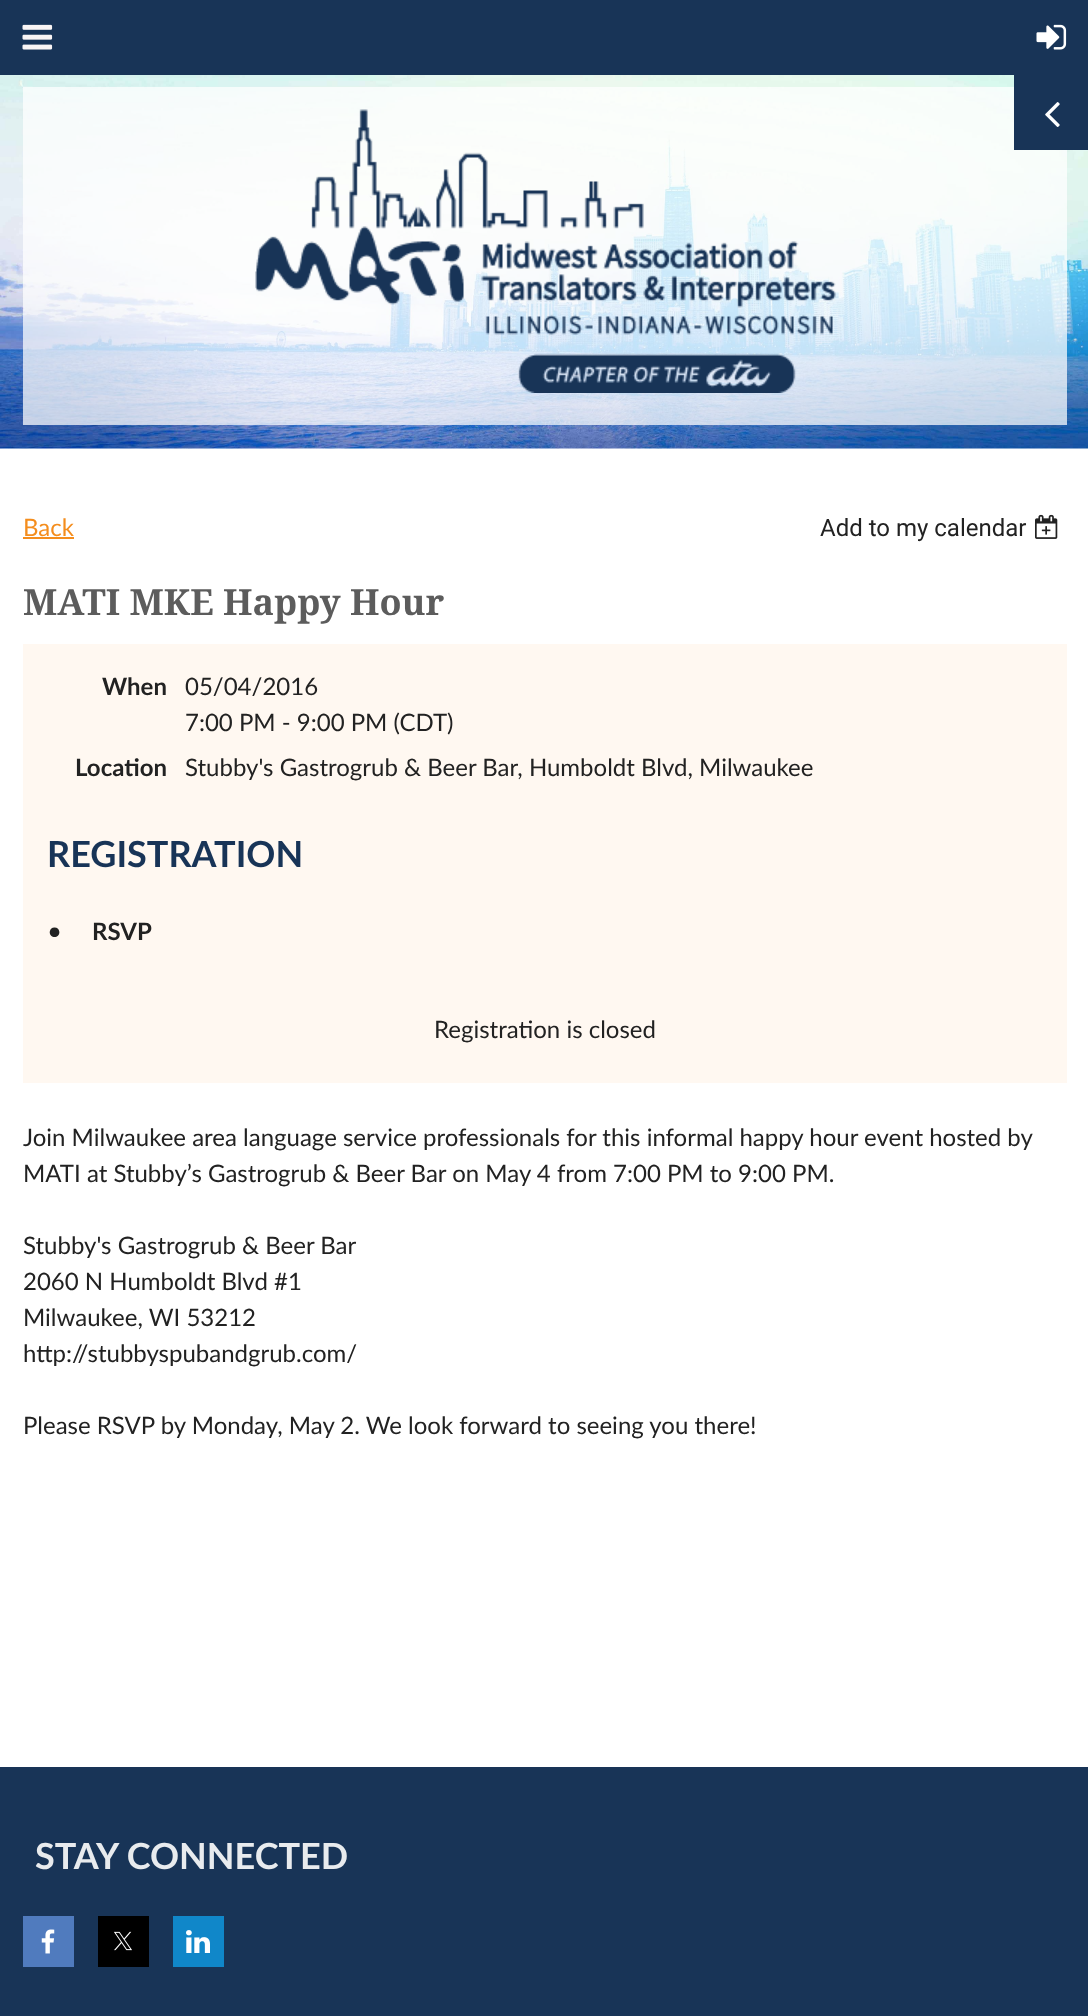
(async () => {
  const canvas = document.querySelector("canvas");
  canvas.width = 1088;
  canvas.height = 2016;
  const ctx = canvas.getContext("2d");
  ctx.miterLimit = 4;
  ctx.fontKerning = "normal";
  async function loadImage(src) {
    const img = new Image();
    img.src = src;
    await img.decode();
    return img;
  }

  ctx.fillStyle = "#ffffff";
  ctx.fillRect(0, 0, 1088, 2016);
  ctx.drawImage(await loadImage("img/4.png"), 0, 75, 1088, 374);
  ctx.fillStyle = "rgba(255, 255, 255, 0.73)";
  ctx.fillRect(23, 87, 1044, 338);
  ctx.fillStyle = "#183457";
  ctx.fillRect(1014, 75, 74, 75);
  ctx.drawImage(await loadImage("img/1.png"), 1045, 102, 15, 25);
  ctx.fillRect(0, 0, 1088, 75);
  ctx.drawImage(await loadImage("img/2.png"), 22, 24, 31, 26);
  ctx.drawImage(await loadImage("img/3.png"), 1036, 24, 31, 26);
  ctx.drawImage(await loadImage("img/5.png"), 255, 109, 581, 284);
  ctx.fillStyle = "#f48d1d";
  ctx.fillRect(23, 537, 51, 2);
  ctx.drawImage(await loadImage("img/6.png"), 1035, 514, 23, 25);
  for (const [x, y, w, h, color] of [
    [23, 644, 1044, 439, "#fff8f1"],
    [0, 1767, 1088, 249, "#183457"],
    [23, 1916, 51, 51, "#507bbe"],
  ]) {
    ctx.fillStyle = color;
    ctx.fillRect(x, y, w, h);
  }
  ctx.drawImage(await loadImage("img/7.png"), 41, 1929, 14, 25);
  ctx.fillStyle = "#000000";
  ctx.fillRect(98, 1916, 51, 51);
  ctx.drawImage(await loadImage("img/8.png"), 114, 1931, 18, 20);
  ctx.fillStyle = "#1087c9";
  ctx.fillRect(173, 1916, 51, 51);
  ctx.drawImage(await loadImage("img/9.png"), 186, 1930, 24, 23);
  ctx.font = "24px Lato";
  ctx.fillStyle = "#f48d1d";
  ctx.fillText("Back", 23, 536);
  ctx.font = "24px Roboto";
  ctx.fillStyle = "#222222";
  ctx.fillText("Add to my calendar", 820, 536);
  ctx.font = "bold 36px Droid Serif";
  ctx.fillStyle = "#5c5c5c";
  ctx.fillText("MATI MKE Happy Hour", 23, 615);
  ctx.font = "bold 24px Lato";
  ctx.fillStyle = "#222222";
  ctx.fillText("When", 102, 695);
  ctx.font = "24px Lato";
  ctx.fillText("05/04/2016", 185, 695);
  ctx.fillText("7:00 PM - 9:00 PM (CDT)", 185, 731);
  ctx.font = "bold 24px Lato";
  ctx.fillText("Location", 75, 776);
  ctx.font = "24px Lato";
  ctx.fillText("Stubby's Gastrogrub & Beer Bar, Humboldt Blvd, Milwaukee", 185, 776);
  ctx.font = "bold 36px Lato";
  ctx.fillStyle = "#183457";
  ctx.fillText("REGISTRATION", 47, 867);
  ctx.font = "26px Lato";
  ctx.fillStyle = "#222222";
  ctx.fillText("•", 47, 940);
  ctx.font = "bold 24px Lato";
  ctx.fillText("RSVP", 92, 940);
  ctx.font = "24px Lato";
  for (const [text, x, y] of [
    ["Registration is closed", 434, 1038],
    ["Join Milwaukee area language service professionals for this informal happy hour event hosted by", 23, 1146],
    ["MATI at Stubby’s Gastrogrub & Beer Bar on May 4 from 7:00 PM to 9:00 PM.", 23, 1182],
    ["Stubby's Gastrogrub & Beer Bar", 23, 1254],
    ["2060 N Humboldt Blvd #1", 23, 1290],
    ["Milwaukee, WI 53212", 23, 1326],
    ["http://stubbyspubandgrub.com/", 23, 1362],
    ["Please RSVP by Monday, May 2. We look forward to seeing you there!", 23, 1434],
  ]) {
    ctx.fillText(text, x, y);
  }
  ctx.font = "bold 36px Lato";
  ctx.fillStyle = "#e8ebee";
  ctx.fillText("STAY CONNECTED", 35, 1869);
})();
